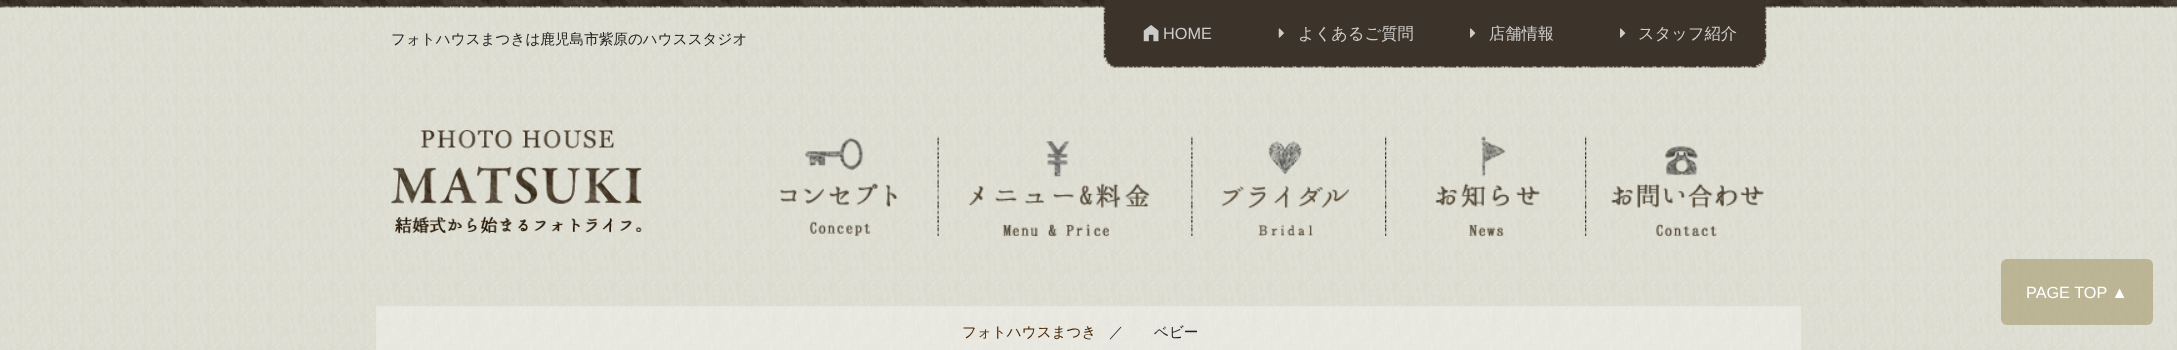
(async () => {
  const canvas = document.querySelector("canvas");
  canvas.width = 2177;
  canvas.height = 350;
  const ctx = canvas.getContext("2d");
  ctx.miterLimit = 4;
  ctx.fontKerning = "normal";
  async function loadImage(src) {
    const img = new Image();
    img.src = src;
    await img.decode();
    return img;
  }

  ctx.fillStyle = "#ffffff";
  ctx.fillRect(0, 0, 2177, 350);
  ctx.drawImage(await loadImage("img/1.png"), 0, 0, 2177, 350);
  ctx.drawImage(await loadImage("img/2.png"), 1103, 0, 664, 68);
  ctx.drawImage(await loadImage("img/3.png"), 1143, 25, 16, 17);
  ctx.drawImage(await loadImage("img/4.png"), 1278, 28, 6, 10);
  ctx.drawImage(await loadImage("img/5.png"), 1470, 28, 6, 10);
  ctx.drawImage(await loadImage("img/5.png"), 1620, 28, 6, 10);
  ctx.drawImage(await loadImage("img/6.png"), 391, 130, 251, 104);
  ctx.drawImage(await loadImage("img/7.png"), 937, 136, 2, 100);
  ctx.drawImage(await loadImage("img/8.png"), 780, 137, 118, 100);
  ctx.drawImage(await loadImage("img/9.png"), 1191, 136, 2, 100);
  ctx.drawImage(await loadImage("img/10.png"), 968, 141, 182, 96);
  ctx.drawImage(await loadImage("img/11.png"), 1385, 136, 2, 100);
  ctx.drawImage(await loadImage("img/12.png"), 1221, 141, 128, 95);
  ctx.drawImage(await loadImage("img/13.png"), 1585, 136, 2, 100);
  ctx.drawImage(await loadImage("img/14.png"), 1435, 136, 106, 101);
  ctx.drawImage(await loadImage("img/15.png"), 1611, 146, 153, 91);
  ctx.fillStyle = "rgba(172, 162, 123, 0.7)";
  ctx.beginPath();
  ctx.roundRect(2001, 259, 152, 66, 6);
  ctx.fill();
  ctx.drawImage(await loadImage("img/16.png"), 376, 306, 1426, 44);
  ctx.font = "500 14.6px WenQuanYi Zen Hei";
  ctx.fillStyle = "#222222";
  ctx.fillText("フォトハウスまつきは鹿児島市紫原のハウススタジオ", 391, 44);
  ctx.font = "16.25px Liberation Sans";
  ctx.fillStyle = "#ceccca";
  ctx.fillText("HOME", 1163, 39);
  ctx.font = "500 16.25px WenQuanYi Zen Hei";
  for (const [text, x, y] of [
    ["よくあるご質問", 1298, 39],
    ["店舗情報", 1489, 39],
    ["スタッフ紹介", 1638, 39],
  ]) {
    ctx.fillText(text, x, y);
  }
  ctx.font = "16.25px Liberation Sans";
  ctx.fillStyle = "#ffffff";
  ctx.fillText("PAGE TOP ▲", 2026, 298);
  ctx.font = "500 14.6px WenQuanYi Zen Hei";
  ctx.fillStyle = "#472400";
  ctx.fillText("フォトハウスまつき", 962, 337);
  ctx.fillStyle = "#222222";
  ctx.fillText("／", 1109, 337);
  ctx.fillText("ベビー", 1154, 337);
})();
